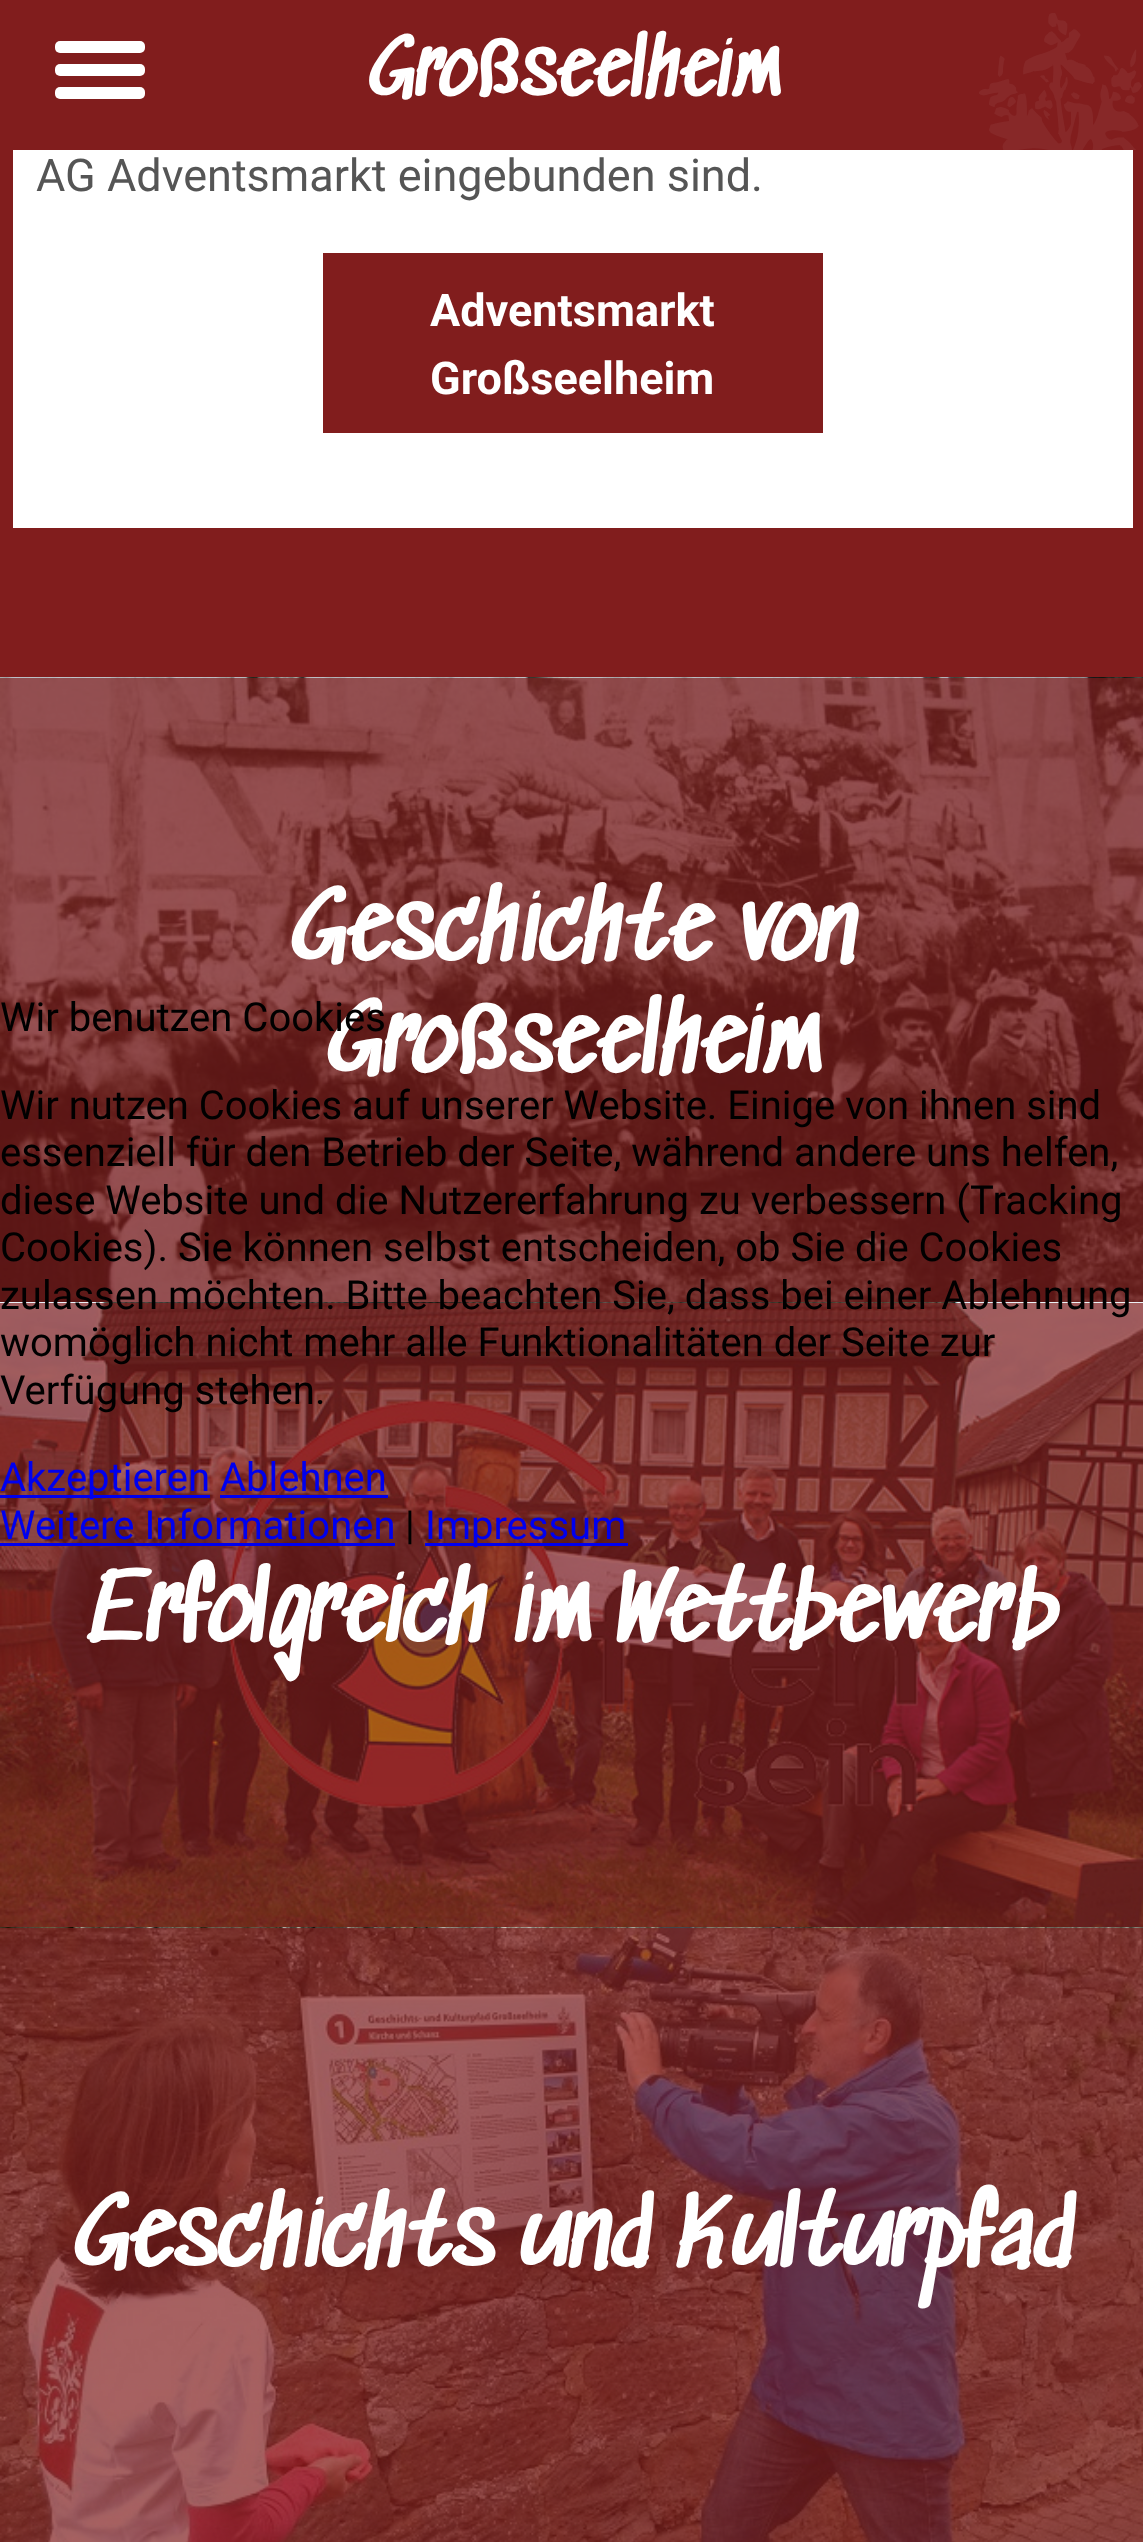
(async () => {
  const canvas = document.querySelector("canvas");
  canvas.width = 1143;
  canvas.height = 2542;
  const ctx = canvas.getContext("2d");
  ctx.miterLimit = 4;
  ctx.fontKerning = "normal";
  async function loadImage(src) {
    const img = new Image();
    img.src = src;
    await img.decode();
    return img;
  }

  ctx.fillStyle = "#811d1d";
  ctx.fillRect(0, 0, 1143, 2542);
  ctx.drawImage(await loadImage("img/1.png"), 979, 13, 163, 137);
  ctx.fillStyle = "#ffffff";
  ctx.beginPath();
  ctx.roundRect(55, 41, 90, 12, 5);
  ctx.fill();
  ctx.beginPath();
  ctx.roundRect(55, 64, 90, 12, 5);
  ctx.fill();
  ctx.beginPath();
  ctx.roundRect(55, 87, 90, 12, 5);
  ctx.fill();
  ctx.fillRect(13, 150, 1120, 378);
  ctx.fillStyle = "#811d1d";
  ctx.fillRect(323, 253, 500, 180);
  ctx.drawImage(await loadImage("img/2.png"), 0, 677, 1143, 625);
  ctx.drawImage(await loadImage("img/3.png"), 0, 1302, 1143, 625);
  ctx.drawImage(await loadImage("img/4.png"), 0, 1927, 1143, 615);
  for (const [x, y, w, h, color] of [
    [0, 1495, 210, 3, "#0000ee"],
    [220, 1495, 168, 3, "#0000ee"],
    [0, 1543, 395, 3, "#0000ee"],
    [425, 1543, 203, 3, "#0000ee"],
  ]) {
    ctx.fillStyle = color;
    ctx.fillRect(x, y, w, h);
  }
  ctx.font = "bold 75px Sedgwick Ave";
  ctx.fillStyle = "#ffffff";
  ctx.fillText("Großseelheim", 366, 99);
  ctx.font = "45px Roboto";
  ctx.fillStyle = "#555555";
  ctx.fillText("AG Adventsmarkt eingebunden sind.", 36, 191);
  ctx.font = "bold 45px Roboto";
  ctx.fillStyle = "#ffffff";
  ctx.fillText("Adventsmarkt", 430, 326);
  ctx.fillText("Großseelheim", 430, 394);
  ctx.font = "bold 90px Sedgwick Ave";
  for (const [text, x, y] of [
    ["Geschichte von", 288, 964],
    ["Großseelheim", 324, 1076],
    ["Erfolgreich im Wettbewerb", 88, 1645],
    ["Geschichts und Kulturpfad", 71, 2270],
  ]) {
    ctx.fillText(text, x, y);
  }
  ctx.font = "40px Roboto";
  ctx.fillStyle = "#000000";
  for (const [text, x, y] of [
    ["Wir benutzen Cookies", 0, 1031],
    ["Wir nutzen Cookies auf unserer Website. Einige von ihnen sind", 0, 1119],
    ["essenziell für den Betrieb der Seite, während andere uns helfen,", 0, 1166],
    ["diese Website und die Nutzererfahrung zu verbessern (Tracking", 0, 1214],
    ["Cookies). Sie können selbst entscheiden, ob Sie die Cookies", 0, 1261],
    ["zulassen möchten. Bitte beachten Sie, dass bei einer Ablehnung", 0, 1309],
    ["womöglich nicht mehr alle Funktionalitäten der Seite zur", 0, 1356],
    ["Verfügung stehen.", 0, 1404],
  ]) {
    ctx.fillText(text, x, y);
  }
  ctx.fillStyle = "#0000ee";
  ctx.fillText("Akzeptieren Ablehnen", 0, 1491);
  ctx.fillText("Weitere Informationen", 0, 1539);
  ctx.fillStyle = "#000000";
  ctx.fillText("|", 405, 1539);
  ctx.fillStyle = "#0000ee";
  ctx.fillText("Impressum", 425, 1539);
})();
